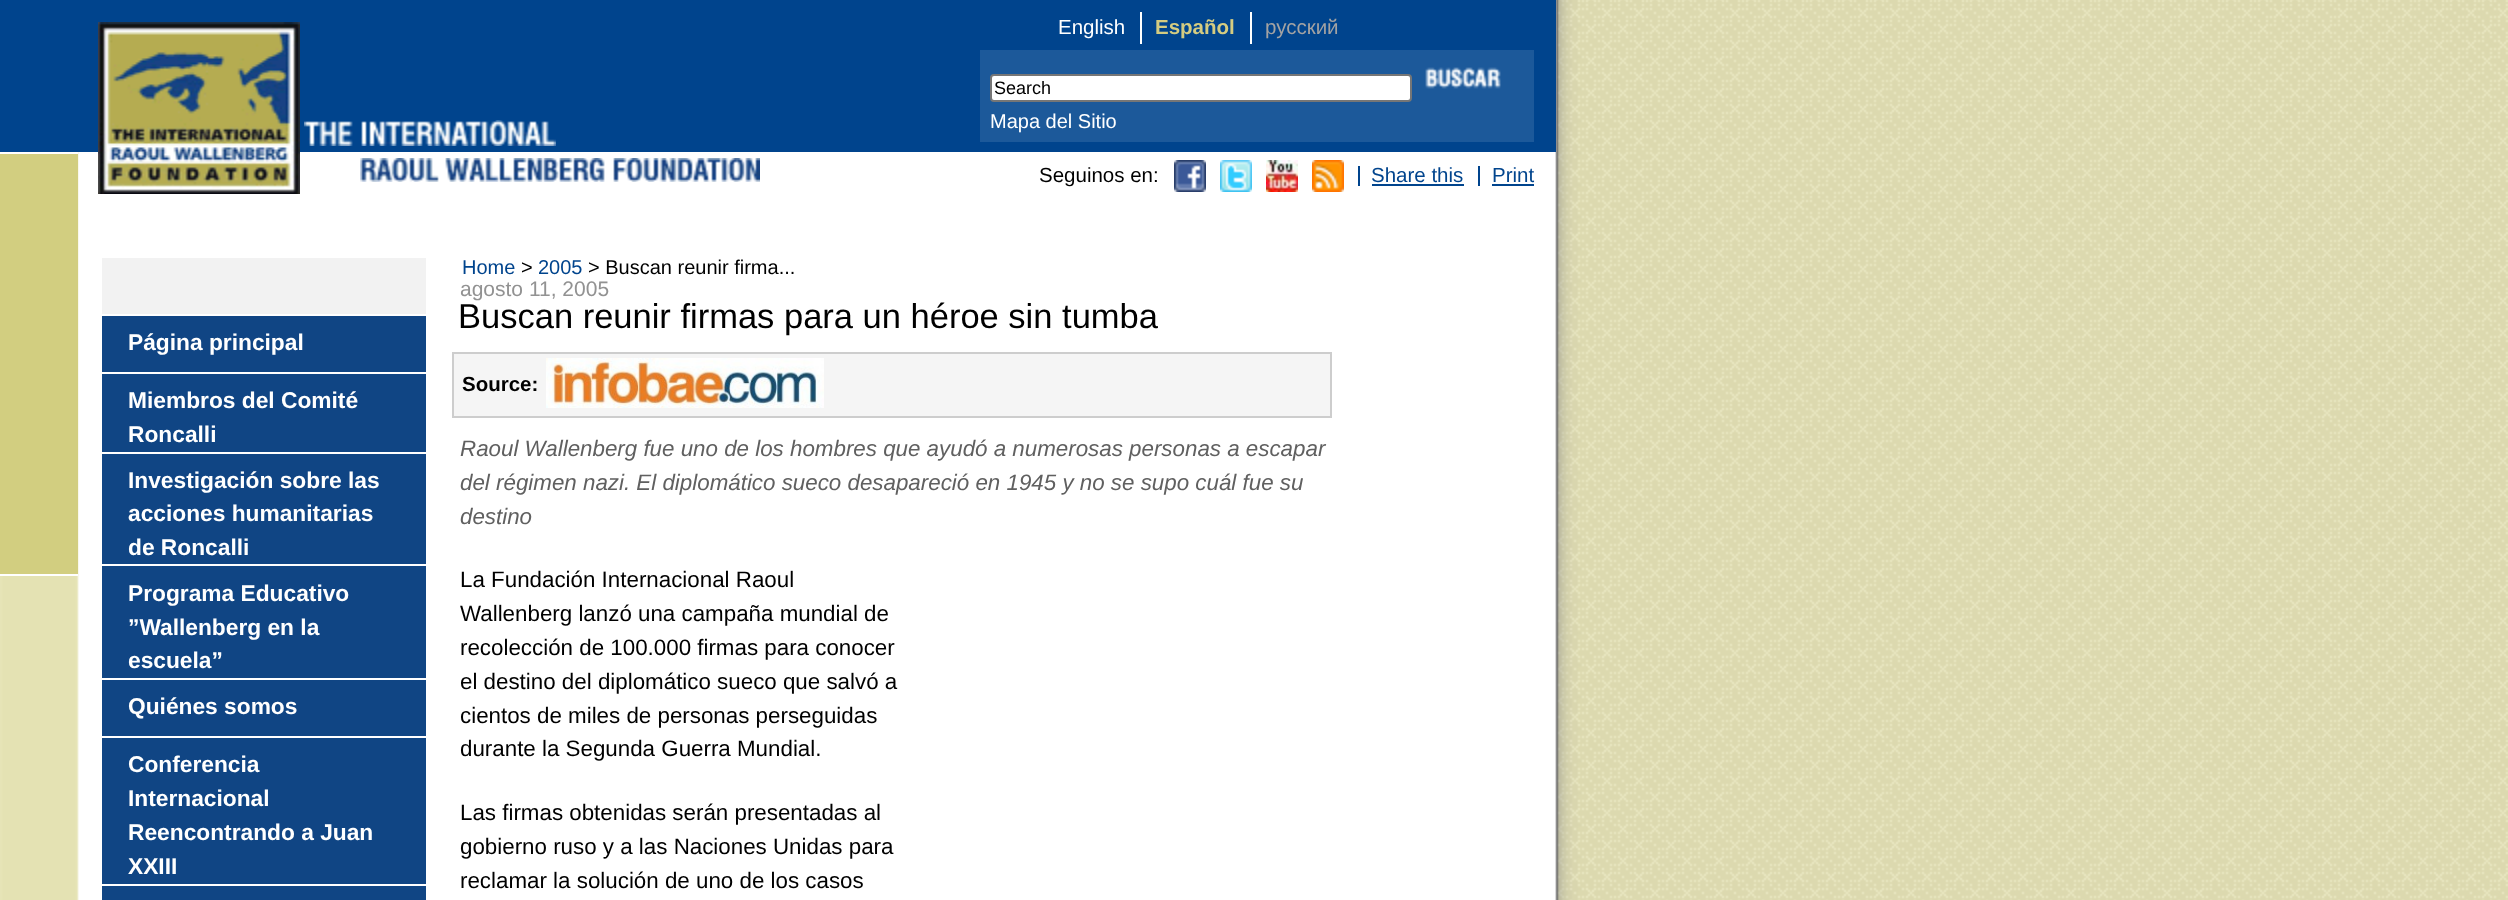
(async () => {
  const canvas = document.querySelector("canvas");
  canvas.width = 2508;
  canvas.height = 900;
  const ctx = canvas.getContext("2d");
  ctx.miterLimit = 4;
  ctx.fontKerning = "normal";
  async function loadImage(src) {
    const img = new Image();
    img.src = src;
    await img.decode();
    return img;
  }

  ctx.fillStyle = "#ffffff";
  ctx.fillRect(0, 0, 2508, 900);
  ctx.drawImage(await loadImage("img/1.png"), 0, 0, 2508, 900);
  ctx.fillStyle = "#00448d";
  ctx.fillRect(0, 0, 1556, 152);
  ctx.drawImage(await loadImage("img/2.png"), 98, 22, 202, 172);
  ctx.drawImage(await loadImage("img/3.png"), 360, 158, 400, 24);
  ctx.fillStyle = "#1c599a";
  ctx.fillRect(980, 50, 554, 92);
  ctx.fillStyle = "#ffffff";
  ctx.beginPath();
  ctx.roundRect(991, 75, 420, 26, 3);
  ctx.fill();
  ctx.strokeStyle = "#767676";
  ctx.lineWidth = 2;
  ctx.stroke();
  ctx.drawImage(await loadImage("img/4.png"), 1425, 67, 76, 22);
  for (const [x, y, w, h, color] of [
    [1140, 12, 2, 32, "#ffffff"],
    [1250, 12, 2, 32, "#ffffff"],
    [102, 258, 324, 56, "#f2f2f2"],
    [102, 316, 324, 56, "#104584"],
    [102, 374, 324, 78, "#104584"],
    [102, 454, 324, 110, "#104584"],
    [102, 566, 324, 112, "#104584"],
    [102, 680, 324, 56, "#104584"],
    [102, 738, 324, 146, "#104584"],
    [102, 886, 324, 14, "#104584"],
  ]) {
    ctx.fillStyle = color;
    ctx.fillRect(x, y, w, h);
  }
  ctx.drawImage(await loadImage("img/5.png"), 1174, 160, 32, 32);
  ctx.drawImage(await loadImage("img/6.png"), 1220, 160, 32, 32);
  ctx.drawImage(await loadImage("img/7.png"), 1266, 160, 32, 32);
  ctx.drawImage(await loadImage("img/8.png"), 1312, 160, 32, 32);
  for (const [x, y, w, h, color] of [
    [1358, 166, 2, 20, "#00448d"],
    [1372, 184, 92, 2, "#00448d"],
    [1478, 166, 2, 20, "#00448d"],
    [1492, 184, 42, 2, "#00448d"],
  ]) {
    ctx.fillStyle = color;
    ctx.fillRect(x, y, w, h);
  }
  ctx.fillStyle = "#f5f5f5";
  ctx.beginPath();
  ctx.rect(453, 353, 878, 64);
  ctx.fill();
  ctx.strokeStyle = "#cdcdcd";
  ctx.stroke();
  ctx.drawImage(await loadImage("img/9.png"), 546, 358, 278, 50);
  ctx.drawImage(await loadImage("img/10.png"), 304, 120, 252, 26);
  for (const [x, y, w, h, color] of [
    [0, 154, 78, 420, "#d2ce80"],
    [0, 152, 78, 2, "#ffffff"],
    [0, 574, 78, 2, "#ffffff"],
  ]) {
    ctx.fillStyle = color;
    ctx.fillRect(x, y, w, h);
  }
  ctx.font = "18px Liberation Sans";
  ctx.fillStyle = "#000000";
  ctx.fillText("Search", 994, 94);
  ctx.font = "20px Liberation Sans";
  ctx.fillStyle = "#ffffff";
  ctx.fillText("Mapa del Sitio", 990, 128);
  ctx.font = "20.5px Liberation Sans";
  ctx.fillText("English", 1058, 34);
  ctx.font = "bold 20.5px Liberation Sans";
  ctx.fillStyle = "#d4cc81";
  ctx.fillText("Español", 1155, 34);
  ctx.font = "20.5px Liberation Sans";
  ctx.fillStyle = "#a3a3a3";
  ctx.fillText("русский", 1265, 34);
  ctx.font = "bold 22.75px Liberation Sans";
  ctx.fillStyle = "#ffffff";
  for (const [text, x, y] of [
    ["Página principal", 128, 350],
    ["Miembros del Comité", 128, 408],
    ["Roncalli", 128, 442],
    ["Investigación sobre las", 128, 488],
    ["acciones humanitarias", 128, 521],
    ["de Roncalli", 128, 555],
    ["Programa Educativo", 128, 601],
    ["”Wallenberg en la", 128, 635],
    ["escuela”", 128, 668],
    ["Quiénes somos", 128, 714],
    ["Conferencia", 128, 772],
    ["Internacional", 128, 806],
    ["Reencontrando a Juan", 128, 840],
    ["XXIII", 128, 874],
  ]) {
    ctx.fillText(text, x, y);
  }
  ctx.font = "20.5px Liberation Sans";
  ctx.fillStyle = "#000000";
  ctx.fillText("Seguinos en:", 1039, 182);
  ctx.fillStyle = "#00448d";
  ctx.fillText("Share this", 1371, 182);
  ctx.fillText("Print", 1492, 182);
  ctx.font = "20px Liberation Sans";
  ctx.fillText("Home", 462, 274);
  ctx.fillStyle = "#000000";
  ctx.fillText(">", 521, 274);
  ctx.fillStyle = "#00448d";
  ctx.fillText("2005", 538, 274);
  ctx.fillStyle = "#000000";
  ctx.fillText("> Buscan reunir firma...", 588, 274);
  ctx.font = "21px Liberation Sans";
  ctx.fillStyle = "#929292";
  ctx.fillText("agosto 11, 2005", 460, 296);
  ctx.font = "34.5px Liberation Sans";
  ctx.fillStyle = "#000000";
  ctx.fillText("Buscan reunir firmas para un héroe sin tumba", 458, 328);
  ctx.font = "bold 20.5px Liberation Sans";
  ctx.fillText("Source:", 462, 391);
  ctx.font = "italic 22.35px Liberation Sans";
  ctx.fillStyle = "#606060";
  for (const [text, x, y] of [
    ["Raoul Wallenberg fue uno de los hombres que ayudó a numerosas personas a escapar", 460, 456],
    ["del régimen nazi. El diplomático sueco desapareció en 1945 y no se supo cuál fue su", 460, 490],
    ["destino", 460, 524],
  ]) {
    ctx.fillText(text, x, y);
  }
  ctx.font = "22.35px Liberation Sans";
  ctx.fillStyle = "#000000";
  for (const [text, x, y] of [
    ["La Fundación Internacional Raoul", 460, 587],
    ["Wallenberg lanzó una campaña mundial de", 460, 621],
    ["recolección de 100.000 firmas para conocer", 460, 655],
    ["el destino del diplomático sueco que salvó a", 460, 689],
    ["cientos de miles de personas perseguidas", 460, 723],
    ["durante la Segunda Guerra Mundial.", 460, 756],
    ["Las firmas obtenidas serán presentadas al", 460, 820],
    ["gobierno ruso y a las Naciones Unidas para", 460, 854],
    ["reclamar la solución de uno de los casos", 460, 888],
  ]) {
    ctx.fillText(text, x, y);
  }
})();
